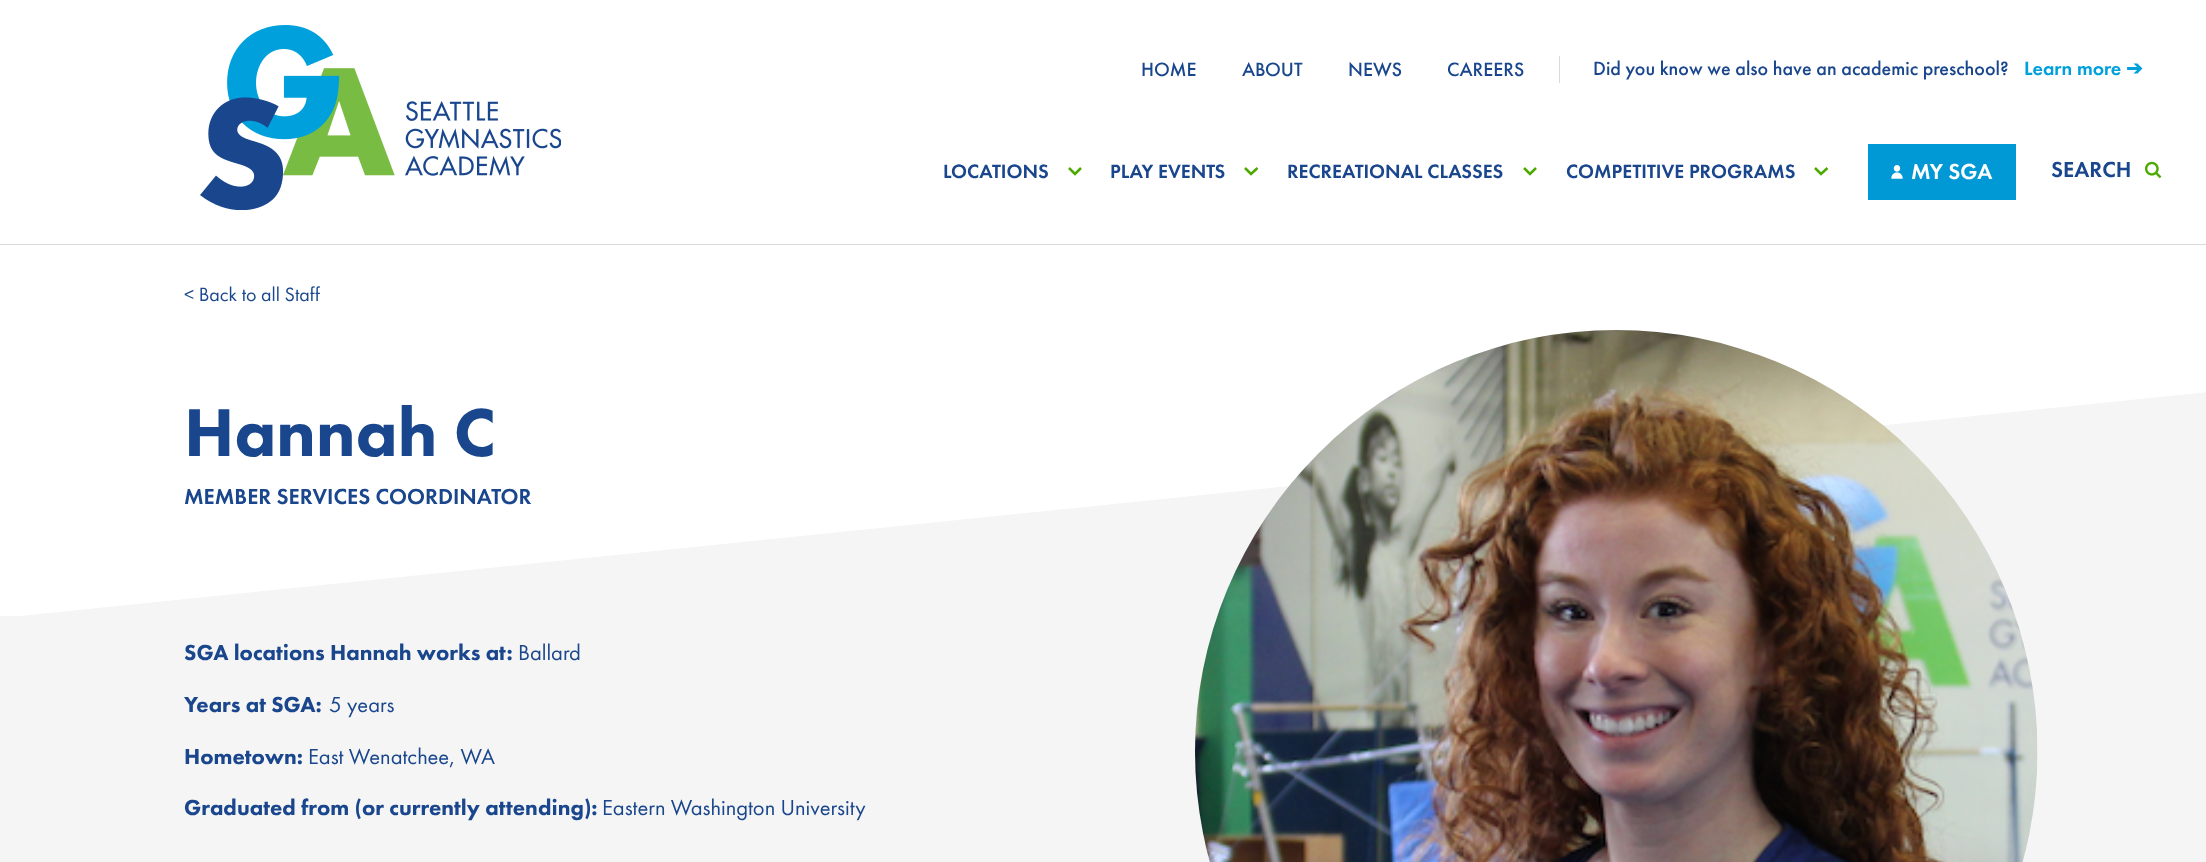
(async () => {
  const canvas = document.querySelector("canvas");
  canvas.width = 2206;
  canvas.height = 862;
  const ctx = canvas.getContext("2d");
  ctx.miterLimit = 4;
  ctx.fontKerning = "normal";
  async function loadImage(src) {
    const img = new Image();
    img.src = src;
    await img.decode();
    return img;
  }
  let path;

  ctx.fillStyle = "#f5f5f5";
  ctx.fillRect(0, 0, 2206, 862);
  ctx.fillStyle = "#ffffff";
  ctx.fillRect(0, 0, 2206, 244);
  ctx.fillStyle = "#dadada";
  ctx.fillRect(0, 244, 2206, 1);
  ctx.drawImage(await loadImage("img/1.png"), 200, 25, 361, 185);
  ctx.fillRect(1559, 56, 1, 27);
  path = new Path2D("M1069 168L1075 174L1081 168");
  ctx.strokeStyle = "#4ca900";
  ctx.lineWidth = 2.5;
  ctx.stroke(path);
  path = new Path2D("M1245 168L1251 174L1257.5 168");
  ctx.stroke(path);
  path = new Path2D("M1524 168L1530 174L1536 168");
  ctx.stroke(path);
  path = new Path2D("M1815 168L1821 174L1827.5 168");
  ctx.stroke(path);
  ctx.fillStyle = "#0098d5";
  ctx.fillRect(1868, 144, 148, 56);
  ctx.drawImage(await loadImage("img/2.png"), 1891, 165, 12, 14);
  ctx.drawImage(await loadImage("img/3.png"), 2144, 161, 18, 18);
  ctx.fillStyle = "#ffffff";
  ctx.fillRect(0, 245, 2206, 146);
  ctx.save();
  ctx.beginPath();
  ctx.rect(0, 391, 2206, 225);
  ctx.clip();
  path = new Path2D("M0 618V391H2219Z");
  ctx.fill(path);
  ctx.restore();
  ctx.drawImage(await loadImage("img/4.png"), 1195, 330, 843, 532);
  ctx.font = "500 20px 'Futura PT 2'";
  ctx.fillStyle = "#19468d";
  for (const [text, x, y] of [
    ["HOME", 1141, 76],
    ["ABOUT", 1242, 76],
    ["NEWS", 1348, 76],
    ["CAREERS", 1447, 76],
    ["Did you know we also have an academic preschool?", 1593, 75],
  ]) {
    ctx.fillText(text, x, y);
  }
  ctx.font = "500 20px Futura PT";
  ctx.fillStyle = "#00a0dd";
  ctx.fillText("Learn more", 2024, 75);
  ctx.font = "bold 20px DejaVu Sans";
  ctx.fillText("➔", 2126, 75);
  ctx.font = "500 20px Futura PT";
  ctx.fillStyle = "#19468d";
  for (const [text, x, y] of [
    ["LOCATIONS", 943, 178],
    ["PLAY EVENTS", 1110, 178],
    ["RECREATIONAL CLASSES", 1287, 178],
    ["COMPETITIVE PROGRAMS", 1566, 178],
  ]) {
    ctx.fillText(text, x, y);
  }
  ctx.font = "500 22.5px Futura PT";
  ctx.fillStyle = "#ffffff";
  ctx.fillText("MY SGA", 1911, 179);
  ctx.fillStyle = "#19468d";
  ctx.fillText("SEARCH", 2051, 177);
  ctx.font = "20px Futura PT";
  ctx.fillText("< Back to all Staff", 184, 301);
  ctx.font = "900 70px Futura PT";
  ctx.fillText("Hannah C", 184, 456);
  ctx.font = "500 22.5px Futura PT";
  ctx.fillText("MEMBER SERVICES COORDINATOR", 184, 504);
  ctx.font = "900 22.5px Futura PT";
  ctx.fillText("SGA locations Hannah works at:", 184, 660);
  ctx.font = "22.5px Futura PT";
  ctx.fillText("Ballard", 518, 660);
  ctx.font = "900 22.5px Futura PT";
  ctx.fillText("Years at SGA:", 184, 712);
  ctx.font = "22.5px Futura PT";
  ctx.fillText("5 years", 329, 712);
  ctx.font = "900 22.5px Futura PT";
  ctx.fillText("Hometown:", 184, 764);
  ctx.font = "22.5px Futura PT";
  ctx.fillText("East Wenatchee, WA", 308, 764);
  ctx.font = "900 22.5px Futura PT";
  ctx.fillText("Graduated from (or currently attending):", 184, 815);
  ctx.font = "22.5px Futura PT";
  ctx.fillText("Eastern Washington University", 602, 815);
})();
